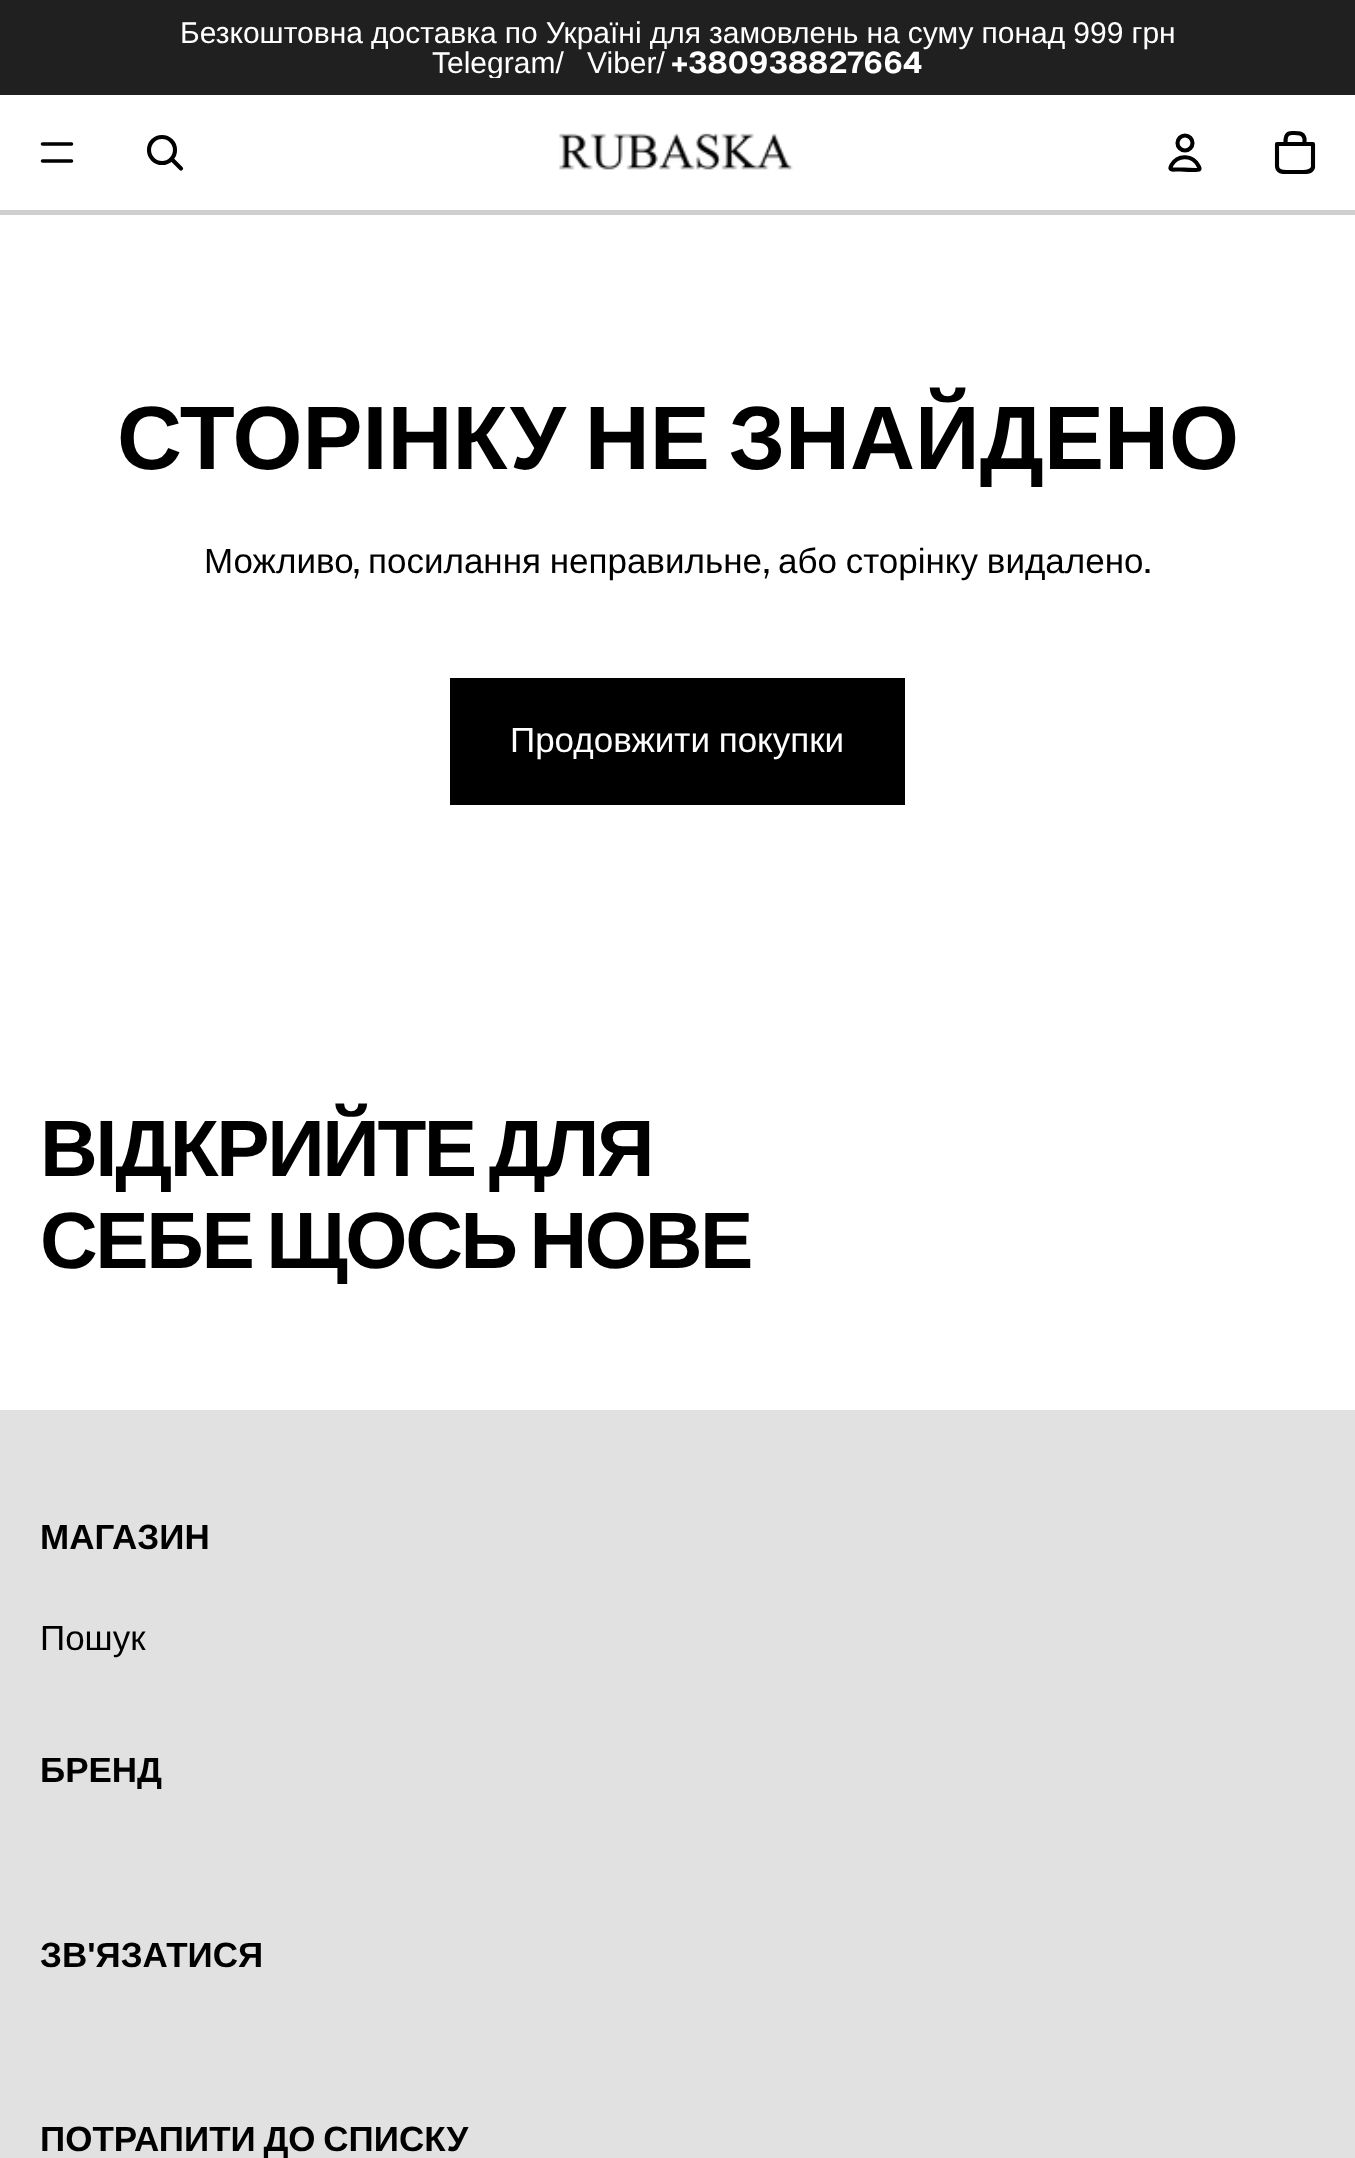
(async () => {
  const canvas = document.querySelector("canvas");
  canvas.width = 1355;
  canvas.height = 2158;
  const ctx = canvas.getContext("2d");
  ctx.miterLimit = 4;
  ctx.fontKerning = "normal";
  async function loadImage(src) {
    const img = new Image();
    img.src = src;
    await img.decode();
    return img;
  }
  let path;

  ctx.fillStyle = "#ffffff";
  ctx.fillRect(0, 0, 1355, 2158);
  ctx.fillStyle = "#202020";
  ctx.fillRect(0, 0, 1355, 95);
  ctx.fillStyle = "#cfcfcf";
  ctx.fillRect(0, 210, 1355, 5);
  path = new Path2D("M42.5 144H71.5M42.5 161H71.5");
  ctx.strokeStyle = "#000000";
  ctx.lineWidth = 3.6;
  ctx.lineCap = "round";
  ctx.stroke(path);
  ctx.beginPath();
  ctx.arc(162, 150, 13, 0, Math.PI * 2);
  ctx.lineWidth = 4.1;
  ctx.stroke();
  path = new Path2D("M172 159.5L181 168.5");
  ctx.lineJoin = "round";
  ctx.stroke(path);
  ctx.drawImage(await loadImage("img/1.png"), 559, 133, 234, 37);
  ctx.beginPath();
  ctx.arc(1185, 143, 7.5, 0, Math.PI * 2);
  ctx.stroke();
  path = new Path2D("M1171.5 165L1170.5 167.5C1169.5 170.5 1175.5 169.5 1176.5 169.5H1180.5C1183 169.5 1198 170.5 1199 169.5L1199.5 169C1200 168 1199 167 1198.5 166C1193 155 1178 154 1171.5 165");
  ctx.stroke(path);
  path = new Path2D("M1277 144H1313V167.5C1311.5 172 1307 172 1303 172H1287C1282.5 172 1277 172 1277 166ZM1291.5 133C1296.5 133 1303 132 1304.5 138.5V144H1285.5C1285.5 139 1285 133 1292 133");
  ctx.stroke(path);
  ctx.fillStyle = "#000000";
  ctx.fillRect(450, 678, 455, 127);
  ctx.fillStyle = "#e1e1e1";
  ctx.fillRect(0, 1410, 1355, 748);
  ctx.wordSpacing = "-0.25px";
  ctx.font = "30px Liberation Sans";
  ctx.fillStyle = "#ffffff";
  ctx.fillText("Безкоштовна доставка по Україні для замовлень на суму понад 999 грн", 180, 43);
  ctx.save();
  ctx.beginPath();
  ctx.rect(110, 18, 1135, 60);
  ctx.clip();
  ctx.wordSpacing = "15px";
  ctx.fillText("Telegram/ Viber/", 432, 73);
  ctx.restore();
  ctx.wordSpacing = "0px";
  ctx.font = "bold 30px Geist";
  ctx.fillText("+380938827664", 671, 73);
  ctx.wordSpacing = "-6px";
  ctx.font = "bold 90px Liberation Sans";
  ctx.fillStyle = "#000000";
  ctx.fillText("СТОРІНКУ НЕ ЗНАЙДЕНО", 117, 469);
  ctx.wordSpacing = "0px";
  ctx.font = "35px Liberation Sans";
  ctx.fillText("Можливо", 204, 573);
  ctx.font = "35px Geist";
  ctx.fillText(",", 353, 573);
  ctx.wordSpacing = "-1px";
  ctx.font = "35px Liberation Sans";
  ctx.fillText("посилання неправильне", 368, 573);
  ctx.wordSpacing = "0px";
  ctx.font = "35px Geist";
  ctx.fillText(",", 763, 573);
  ctx.wordSpacing = "-1px";
  ctx.font = "35px Liberation Sans";
  ctx.fillText("або сторінку видалено", 778, 573);
  ctx.wordSpacing = "0px";
  ctx.font = "35px Geist";
  ctx.fillText(".", 1144, 573);
  ctx.wordSpacing = "-1px";
  ctx.font = "35px Liberation Sans";
  ctx.fillStyle = "#ffffff";
  ctx.fillText("Продовжити покупки", 510, 752);
  ctx.letterSpacing = "-2.4px";
  ctx.wordSpacing = "-6px";
  ctx.font = "bold 80px Liberation Sans";
  ctx.fillStyle = "#000000";
  ctx.fillText("ВІДКРИЙТЕ ДЛЯ", 40, 1176);
  ctx.fillText("СЕБЕ ЩОСЬ НОВЕ", 40, 1268);
  ctx.letterSpacing = "0px";
  ctx.wordSpacing = "0px";
  ctx.font = "bold 35px Liberation Sans";
  ctx.fillText("МАГАЗИН", 40, 1549);
  ctx.font = "35px Liberation Sans";
  ctx.fillText("Пошук", 40, 1650);
  ctx.font = "bold 35px Liberation Sans";
  ctx.fillText("БРЕНД", 40, 1782);
  ctx.fillText("ЗВ'ЯЗАТИСЯ", 40, 1967);
  ctx.wordSpacing = "-2px";
  ctx.fillText("ПОТРАПИТИ ДО СПИСКУ", 40, 2151);
})();
